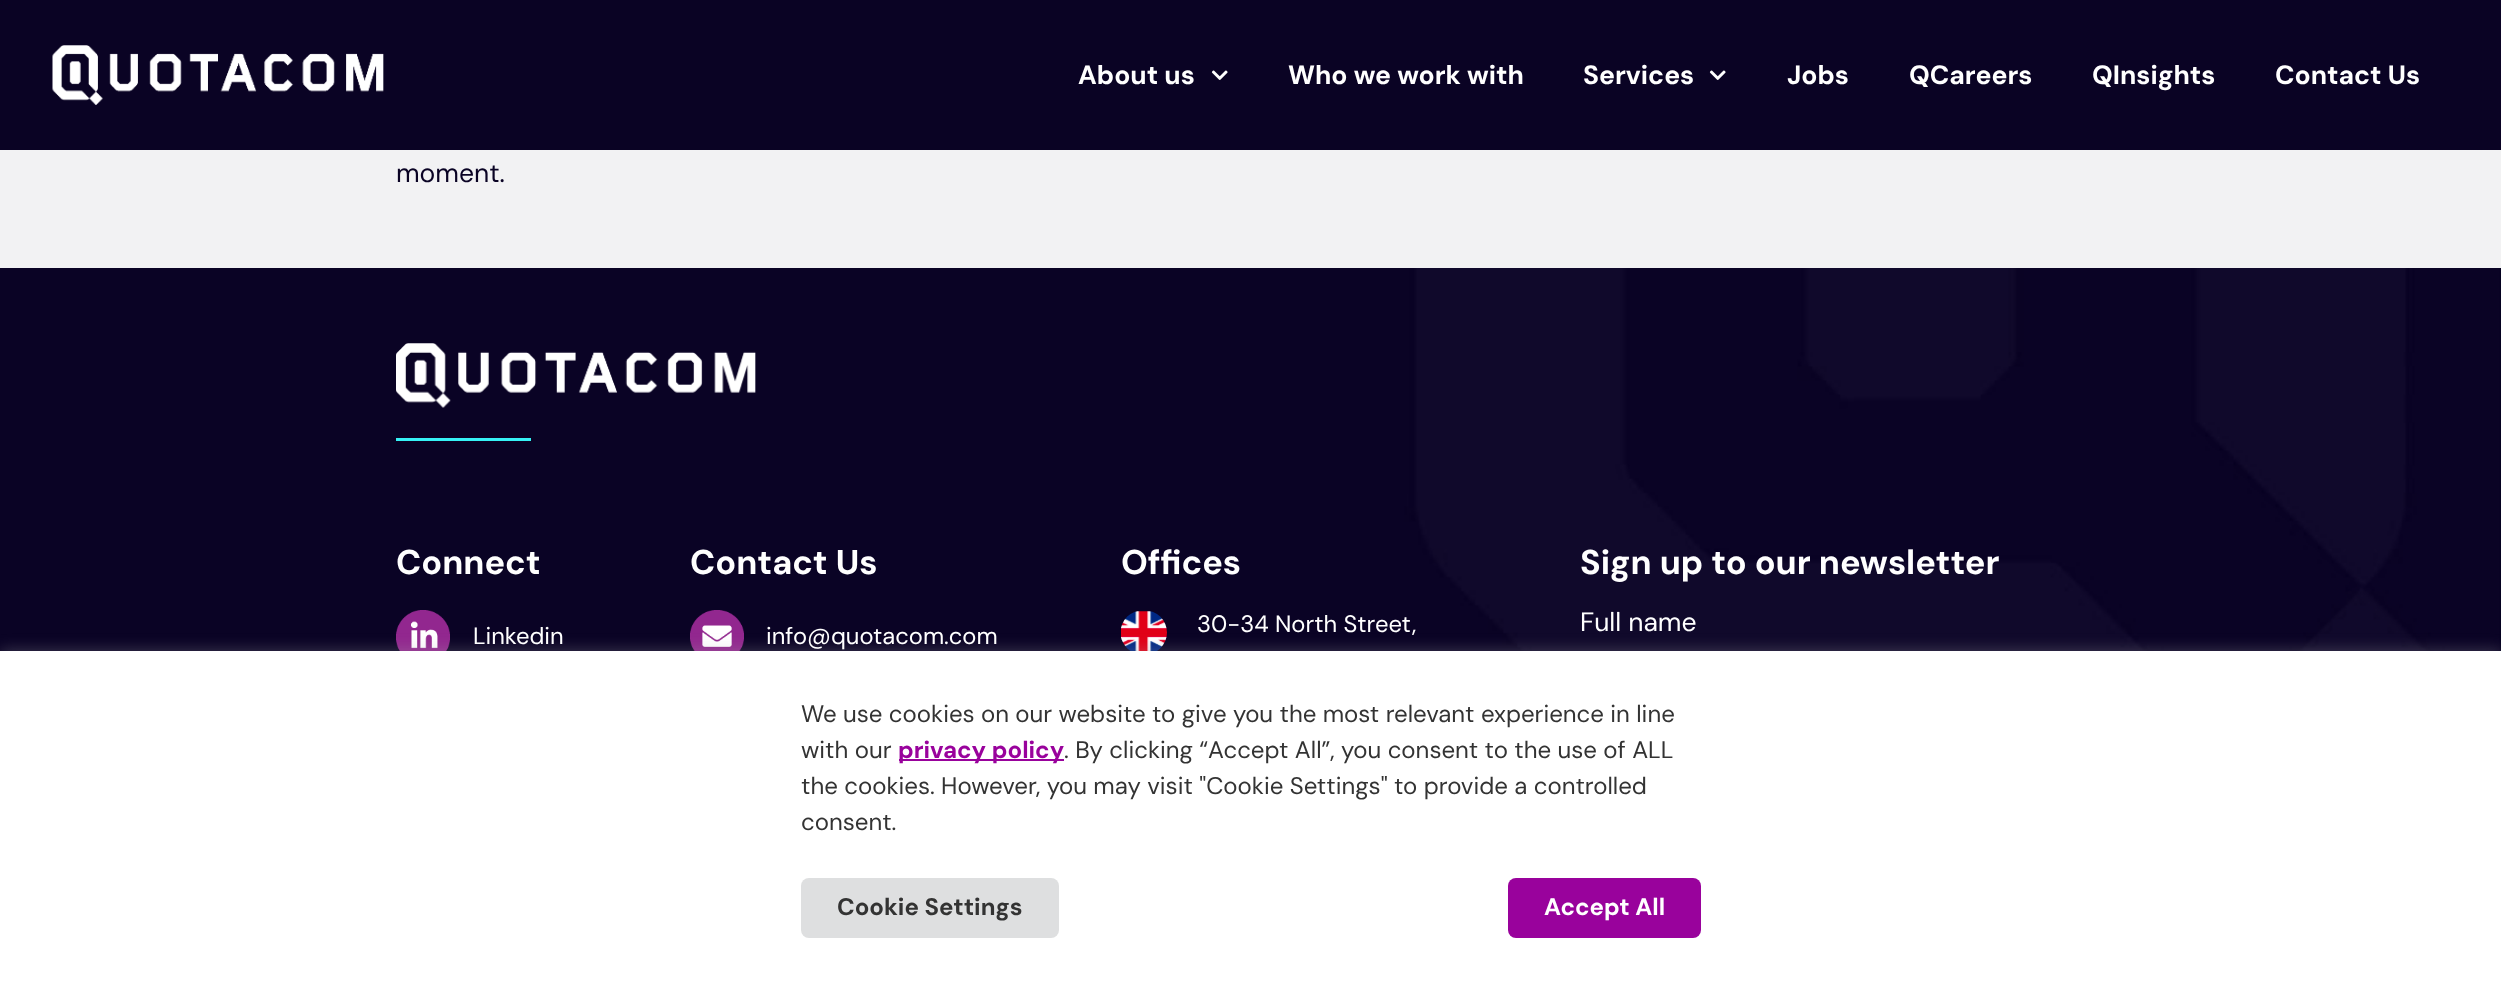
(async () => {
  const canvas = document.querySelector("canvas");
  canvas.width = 2501;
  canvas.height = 990;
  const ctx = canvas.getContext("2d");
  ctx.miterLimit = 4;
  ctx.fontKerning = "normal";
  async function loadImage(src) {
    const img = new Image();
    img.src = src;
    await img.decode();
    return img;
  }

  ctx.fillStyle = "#f2f2f3";
  ctx.fillRect(0, 0, 2501, 990);
  ctx.fillStyle = "#0a0324";
  ctx.fillRect(0, 0, 2501, 150);
  ctx.drawImage(await loadImage("img/1.png"), 52, 45, 332, 60);
  ctx.drawImage(await loadImage("img/2.png"), 1211, 70, 17, 10);
  ctx.drawImage(await loadImage("img/2.png"), 1709, 70, 17, 10);
  ctx.drawImage(await loadImage("img/3.png"), 0, 268, 2501, 383);
  ctx.drawImage(await loadImage("img/4.png"), 396, 343, 360, 65);
  ctx.fillStyle = "#36f2f5";
  ctx.fillRect(396, 438, 135, 3);
  ctx.drawImage(await loadImage("img/5.png"), 396, 610, 54, 41);
  ctx.drawImage(await loadImage("img/6.png"), 690, 610, 54, 41);
  ctx.drawImage(await loadImage("img/7.png"), 1121, 611, 46, 40);
  ctx.fillStyle = "rgba(172, 171, 171, 0.3)";
  ctx.filter = "blur(7.5px)";
  ctx.beginPath();
  ctx.rect(0, 650, 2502, 339);
  ctx.fill();
  ctx.filter = "none";
  ctx.fillStyle = "#ffffff";
  ctx.fillRect(0, 651, 2501, 339);
  ctx.fillStyle = "#99029c";
  ctx.fillRect(899, 759, 165, 2);
  ctx.fillStyle = "#dedfe0";
  ctx.beginPath();
  ctx.roundRect(801, 878, 258, 60, 8);
  ctx.fill();
  ctx.fillStyle = "#99029c";
  ctx.beginPath();
  ctx.roundRect(1508, 878, 193, 60, 8);
  ctx.fill();
  ctx.font = "bold 26.5px DM Sans";
  ctx.fillStyle = "#ffffff";
  for (const [text, x, y] of [
    ["About us", 1078, 84],
    ["Who we work with", 1288, 84],
    ["Services", 1583, 84],
    ["Jobs", 1787, 84],
    ["QCareers", 1909, 84],
    ["QInsights", 2092, 84],
    ["Contact Us", 2275, 84],
  ]) {
    ctx.fillText(text, x, y);
  }
  ctx.font = "26.5px DM Sans";
  ctx.fillStyle = "#0a0324";
  ctx.fillText("moment.", 396, 182);
  ctx.font = "bold 34.25px DM Sans";
  ctx.fillStyle = "#ffffff";
  ctx.fillText("Connect", 396, 574);
  ctx.font = "23.75px DM Sans";
  ctx.fillText("Linkedin", 473, 644);
  ctx.font = "bold 34.25px DM Sans";
  ctx.fillText("Contact Us", 690, 574);
  ctx.font = "23.75px DM Sans";
  ctx.fillText("info@quotacom.com", 766, 644);
  ctx.font = "bold 34.25px DM Sans";
  ctx.fillText("Offices", 1121, 574);
  ctx.font = "23.75px DM Sans";
  ctx.fillText("30-34 North Street,", 1197, 632);
  ctx.font = "bold 34.25px DM Sans";
  ctx.fillText("Sign up to our newsletter", 1580, 574);
  ctx.font = "26.5px DM Sans";
  ctx.fillText("Full name", 1580, 631);
  ctx.font = "24px DM Sans";
  ctx.fillStyle = "#333333";
  ctx.fillText("We use cookies on our website to give you the most relevant experience in line", 801, 722);
  ctx.fillText("with our", 801, 758);
  ctx.font = "bold 24px DM Sans";
  ctx.fillStyle = "#99029c";
  ctx.fillText("privacy policy", 898, 758);
  ctx.font = "24px DM Sans";
  ctx.fillStyle = "#333333";
  for (const [text, x, y] of [
    [". By clicking “Accept All”, you consent to the use of ALL", 1064, 758],
    ["the cookies. However, you may visit \"Cookie Settings\" to provide a controlled", 801, 794],
    ["consent.", 801, 830],
  ]) {
    ctx.fillText(text, x, y);
  }
  ctx.font = "bold 24px DM Sans";
  ctx.fillText("Cookie Settings", 837, 915);
  ctx.fillStyle = "#ffffff";
  ctx.fillText("Accept All", 1544, 915);
})();
